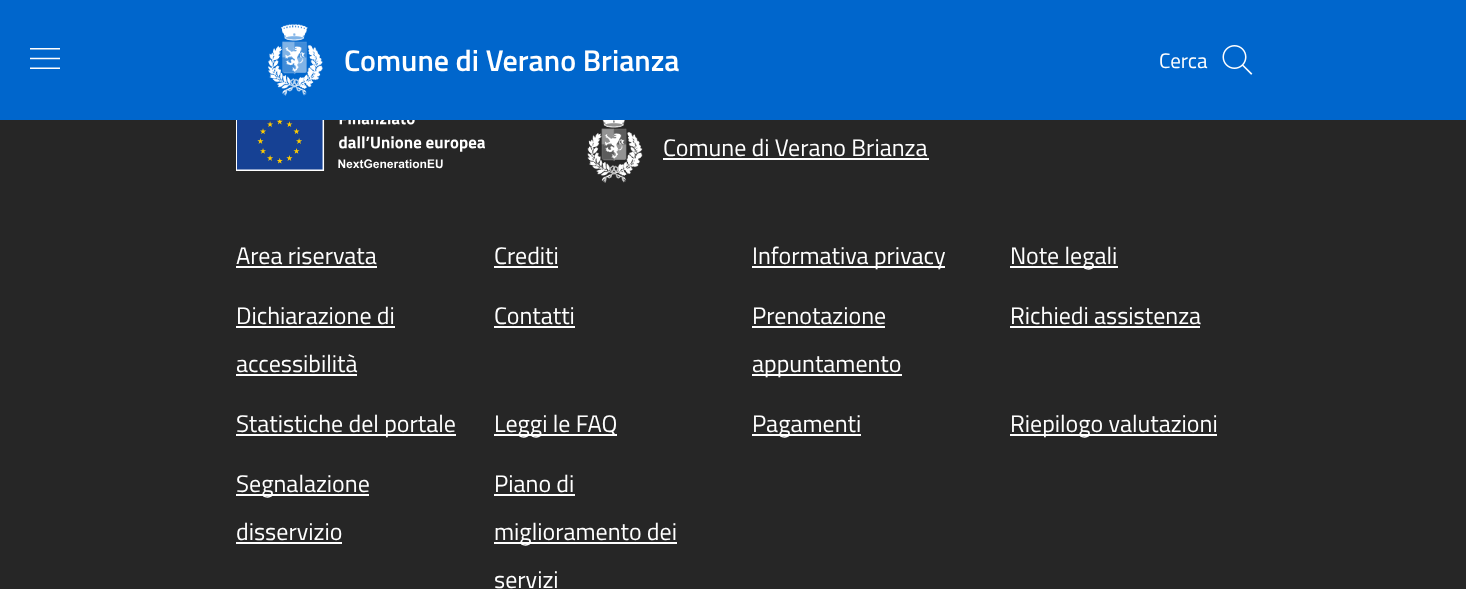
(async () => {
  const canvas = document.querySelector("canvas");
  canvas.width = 1466;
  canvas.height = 589;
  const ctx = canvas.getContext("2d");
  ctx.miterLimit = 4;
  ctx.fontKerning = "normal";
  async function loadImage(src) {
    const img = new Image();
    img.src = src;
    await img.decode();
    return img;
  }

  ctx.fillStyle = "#262626";
  ctx.fillRect(0, 0, 1466, 589);
  ctx.fillStyle = "#0066cc";
  ctx.fillRect(0, 0, 1466, 120);
  ctx.drawImage(await loadImage("img/1.png"), 30, 48, 30, 21);
  ctx.drawImage(await loadImage("img/2.png"), 268, 24, 55, 72);
  ctx.drawImage(await loadImage("img/3.png"), 1222, 45, 31, 30);
  ctx.drawImage(await loadImage("img/4.png"), 236, 120, 249, 51);
  ctx.drawImage(await loadImage("img/5.png"), 587, 120, 56, 63);
  for (const [x, y, w, h, color] of [
    [663, 158, 266, 2, "#ffffff"],
    [236, 266, 141, 2, "#ffffff"],
    [494, 266, 64, 2, "#ffffff"],
    [752, 266, 193, 2, "#ffffff"],
    [1010, 266, 108, 2, "#ffffff"],
    [236, 326, 159, 2, "#ffffff"],
    [236, 374, 121, 2, "#ffffff"],
    [494, 326, 81, 2, "#ffffff"],
    [752, 326, 133, 2, "#ffffff"],
    [752, 374, 150, 2, "#ffffff"],
    [1010, 326, 190, 2, "#ffffff"],
    [236, 434, 220, 2, "#ffffff"],
    [494, 434, 123, 2, "#ffffff"],
    [752, 434, 109, 2, "#ffffff"],
    [1010, 434, 207, 2, "#ffffff"],
    [236, 494, 133, 2, "#ffffff"],
    [236, 542, 106, 2, "#ffffff"],
    [494, 494, 81, 2, "#ffffff"],
    [494, 542, 183, 2, "#ffffff"],
  ]) {
    ctx.fillStyle = color;
    ctx.fillRect(x, y, w, h);
  }
  ctx.font = "600 30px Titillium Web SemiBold";
  ctx.fillText("Comune di Verano Brianza", 344, 71);
  ctx.font = "21px Titillium Web";
  ctx.fillText("Cerca", 1159, 68);
  ctx.font = "24px Titillium Web";
  for (const [text, x, y] of [
    ["Comune di Verano Brianza", 663, 156],
    ["Area riservata", 236, 264],
    ["Crediti", 494, 264],
    ["Informativa privacy", 752, 264],
    ["Note legali", 1010, 264],
    ["Dichiarazione di", 236, 324],
    ["accessibilità", 236, 372],
    ["Contatti", 494, 324],
    ["Prenotazione", 752, 324],
    ["appuntamento", 752, 372],
    ["Richiedi assistenza", 1010, 324],
    ["Statistiche del portale", 236, 432],
    ["Leggi le FAQ", 494, 432],
    ["Pagamenti", 752, 432],
    ["Riepilogo valutazioni", 1010, 432],
    ["Segnalazione", 236, 492],
    ["disservizio", 236, 540],
    ["Piano di", 494, 492],
    ["miglioramento dei", 494, 540],
    ["servizi", 494, 588],
  ]) {
    ctx.fillText(text, x, y);
  }
})();
